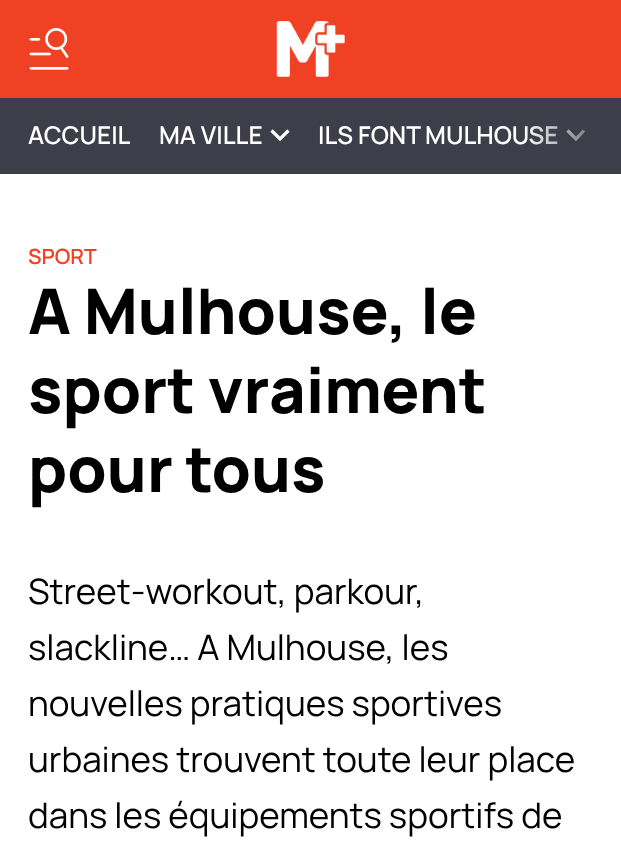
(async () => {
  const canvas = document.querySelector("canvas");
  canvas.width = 621;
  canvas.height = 865;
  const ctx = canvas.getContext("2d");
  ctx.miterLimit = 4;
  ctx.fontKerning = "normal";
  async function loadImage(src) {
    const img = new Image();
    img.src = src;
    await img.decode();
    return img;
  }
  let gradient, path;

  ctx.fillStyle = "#ffffff";
  ctx.fillRect(0, 0, 621, 865);
  ctx.fillStyle = "#f04124";
  ctx.fillRect(0, 0, 621, 98);
  ctx.drawImage(await loadImage("img/1.png"), 29, 28, 40, 42);
  ctx.drawImage(await loadImage("img/2.png"), 276, 21, 69, 56);
  ctx.fillStyle = "#3e3d4a";
  ctx.fillRect(0, 98, 621, 76);
  path = new Path2D("M271.5 130.5L280 139L288.5 130.5");
  ctx.strokeStyle = "#ffffff";
  ctx.lineWidth = 3.2;
  ctx.stroke(path);
  path = new Path2D("M567.5 130.5L576 139L584 130.5");
  ctx.stroke(path);
  ctx.font = "600 24.5px Manrope";
  ctx.fillStyle = "#ffffff";
  for (const [text, x, y] of [
    ["ACCUEIL", 28, 144],
    ["MA VILLE", 159, 144],
    ["ILS FONT MULHOUSE", 318, 144],
  ]) {
    ctx.fillText(text, x, y);
  }
  gradient = ctx.createLinearGradient(621, 135, 523, 135);
  gradient.addColorStop(0, "#3e3d4a");
  gradient.addColorStop(1, "rgba(62, 61, 74, 0)");
  ctx.fillStyle = gradient;
  ctx.fillRect(525, 126, 61, 19);
  ctx.font = "600 21px Manrope";
  ctx.fillStyle = "#f04124";
  ctx.fillText("SPORT", 28, 264);
  ctx.font = "800 63px Manrope";
  ctx.fillStyle = "#000000";
  for (const [text, x, y] of [
    ["A Mulhouse, le", 28, 334],
    ["sport vraiment", 28, 413],
    ["pour tous", 28, 492],
  ]) {
    ctx.fillText(text, x, y);
  }
  ctx.font = "35px Manrope";
  for (const [text, x, y] of [
    ["Street-workout, parkour,", 28, 604],
    ["slackline… A Mulhouse, les", 28, 660],
    ["nouvelles pratiques sportives", 28, 716],
    ["urbaines trouvent toute leur place", 28, 772],
    ["dans les équipements sportifs de", 28, 828],
  ]) {
    ctx.fillText(text, x, y);
  }
})();
